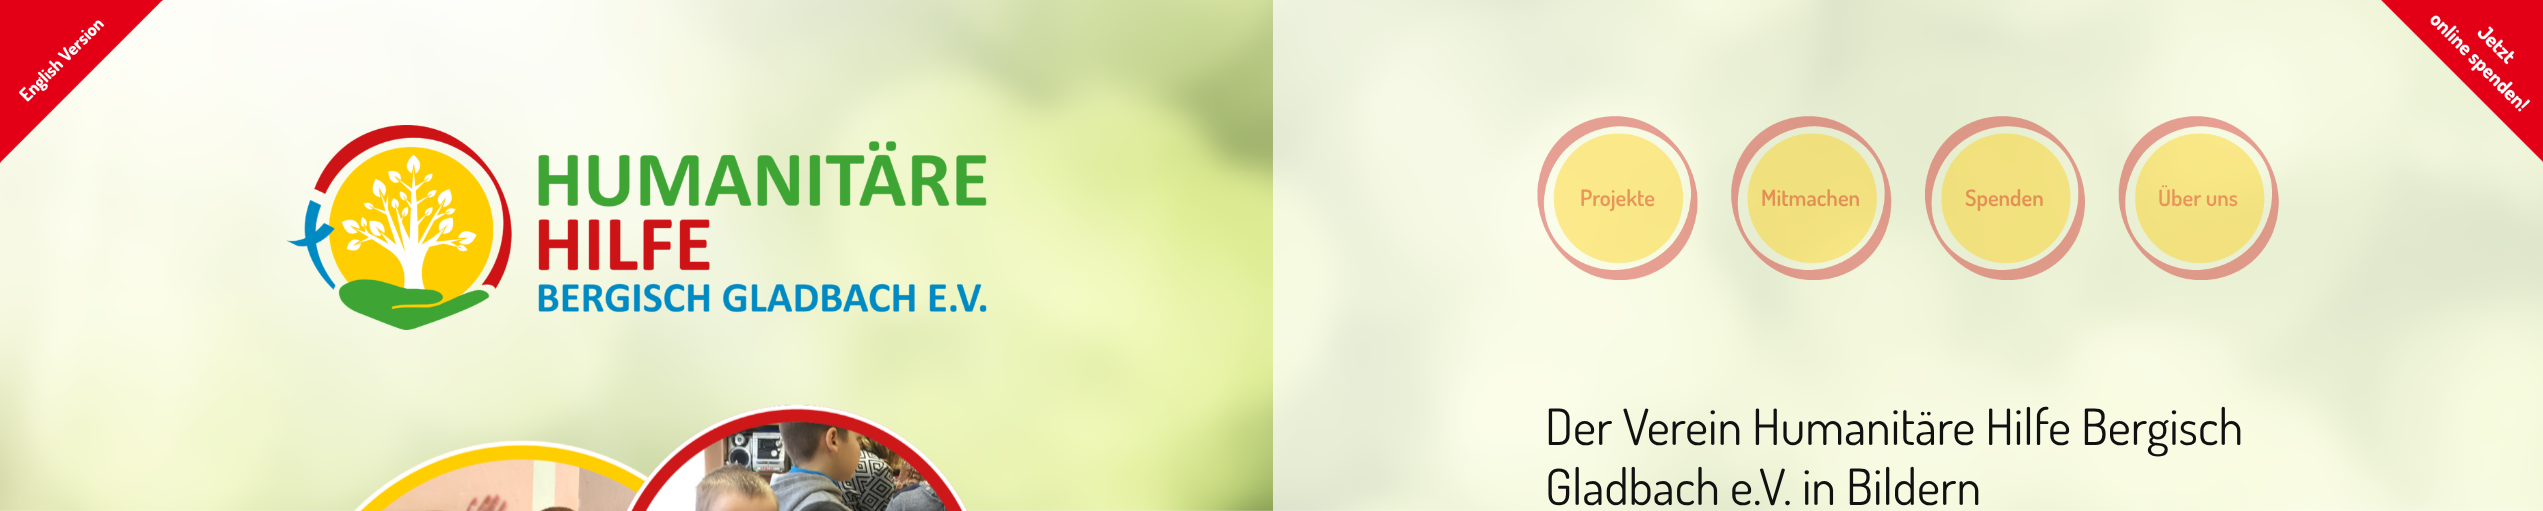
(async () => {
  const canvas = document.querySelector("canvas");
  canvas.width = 2543;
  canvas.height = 511;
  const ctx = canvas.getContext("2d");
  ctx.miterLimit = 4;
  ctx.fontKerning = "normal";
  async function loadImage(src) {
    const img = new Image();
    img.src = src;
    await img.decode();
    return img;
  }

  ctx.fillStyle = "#ffffff";
  ctx.fillRect(0, 0, 2543, 511);
  ctx.drawImage(await loadImage("img/3.png"), 0, 0, 2543, 511);
  ctx.drawImage(await loadImage("img/1.png"), 0, 0, 163, 163);
  ctx.fillStyle = "rgba(255, 255, 255, 0.7)";
  ctx.fillRect(1273, 0, 1270, 511);
  ctx.drawImage(await loadImage("img/2.png"), 2381, 0, 162, 162);
  ctx.drawImage(await loadImage("img/4.png"), 286, 125, 701, 205);
  ctx.drawImage(await loadImage("img/5.png"), 354, 404, 614, 107);
  ctx.drawImage(await loadImage("img/6.png"), 1537, 116, 161, 164);
  ctx.drawImage(await loadImage("img/7.png"), 1731, 116, 161, 164);
  ctx.drawImage(await loadImage("img/8.png"), 1925, 116, 160, 164);
  ctx.drawImage(await loadImage("img/9.png"), 2118, 116, 161, 164);
  ctx.font = "600 22.5px Dosis";
  ctx.fillStyle = "#e8955c";
  ctx.fillText("Projekte", 1580, 206);
  ctx.fillStyle = "#e39056";
  ctx.fillText("Mitmachen", 1761, 206);
  ctx.fillText("Spenden", 1965, 206);
  ctx.fillStyle = "#e8955c";
  ctx.fillText("Über uns", 2158, 206);
  ctx.font = "50px Dosis";
  ctx.fillStyle = "#111111";
  ctx.fillText("Der Verein Humanitäre Hilfe Bergisch", 1545, 445);
  ctx.fillText("Gladbach e.V. in Bildern", 1545, 505);
})();
